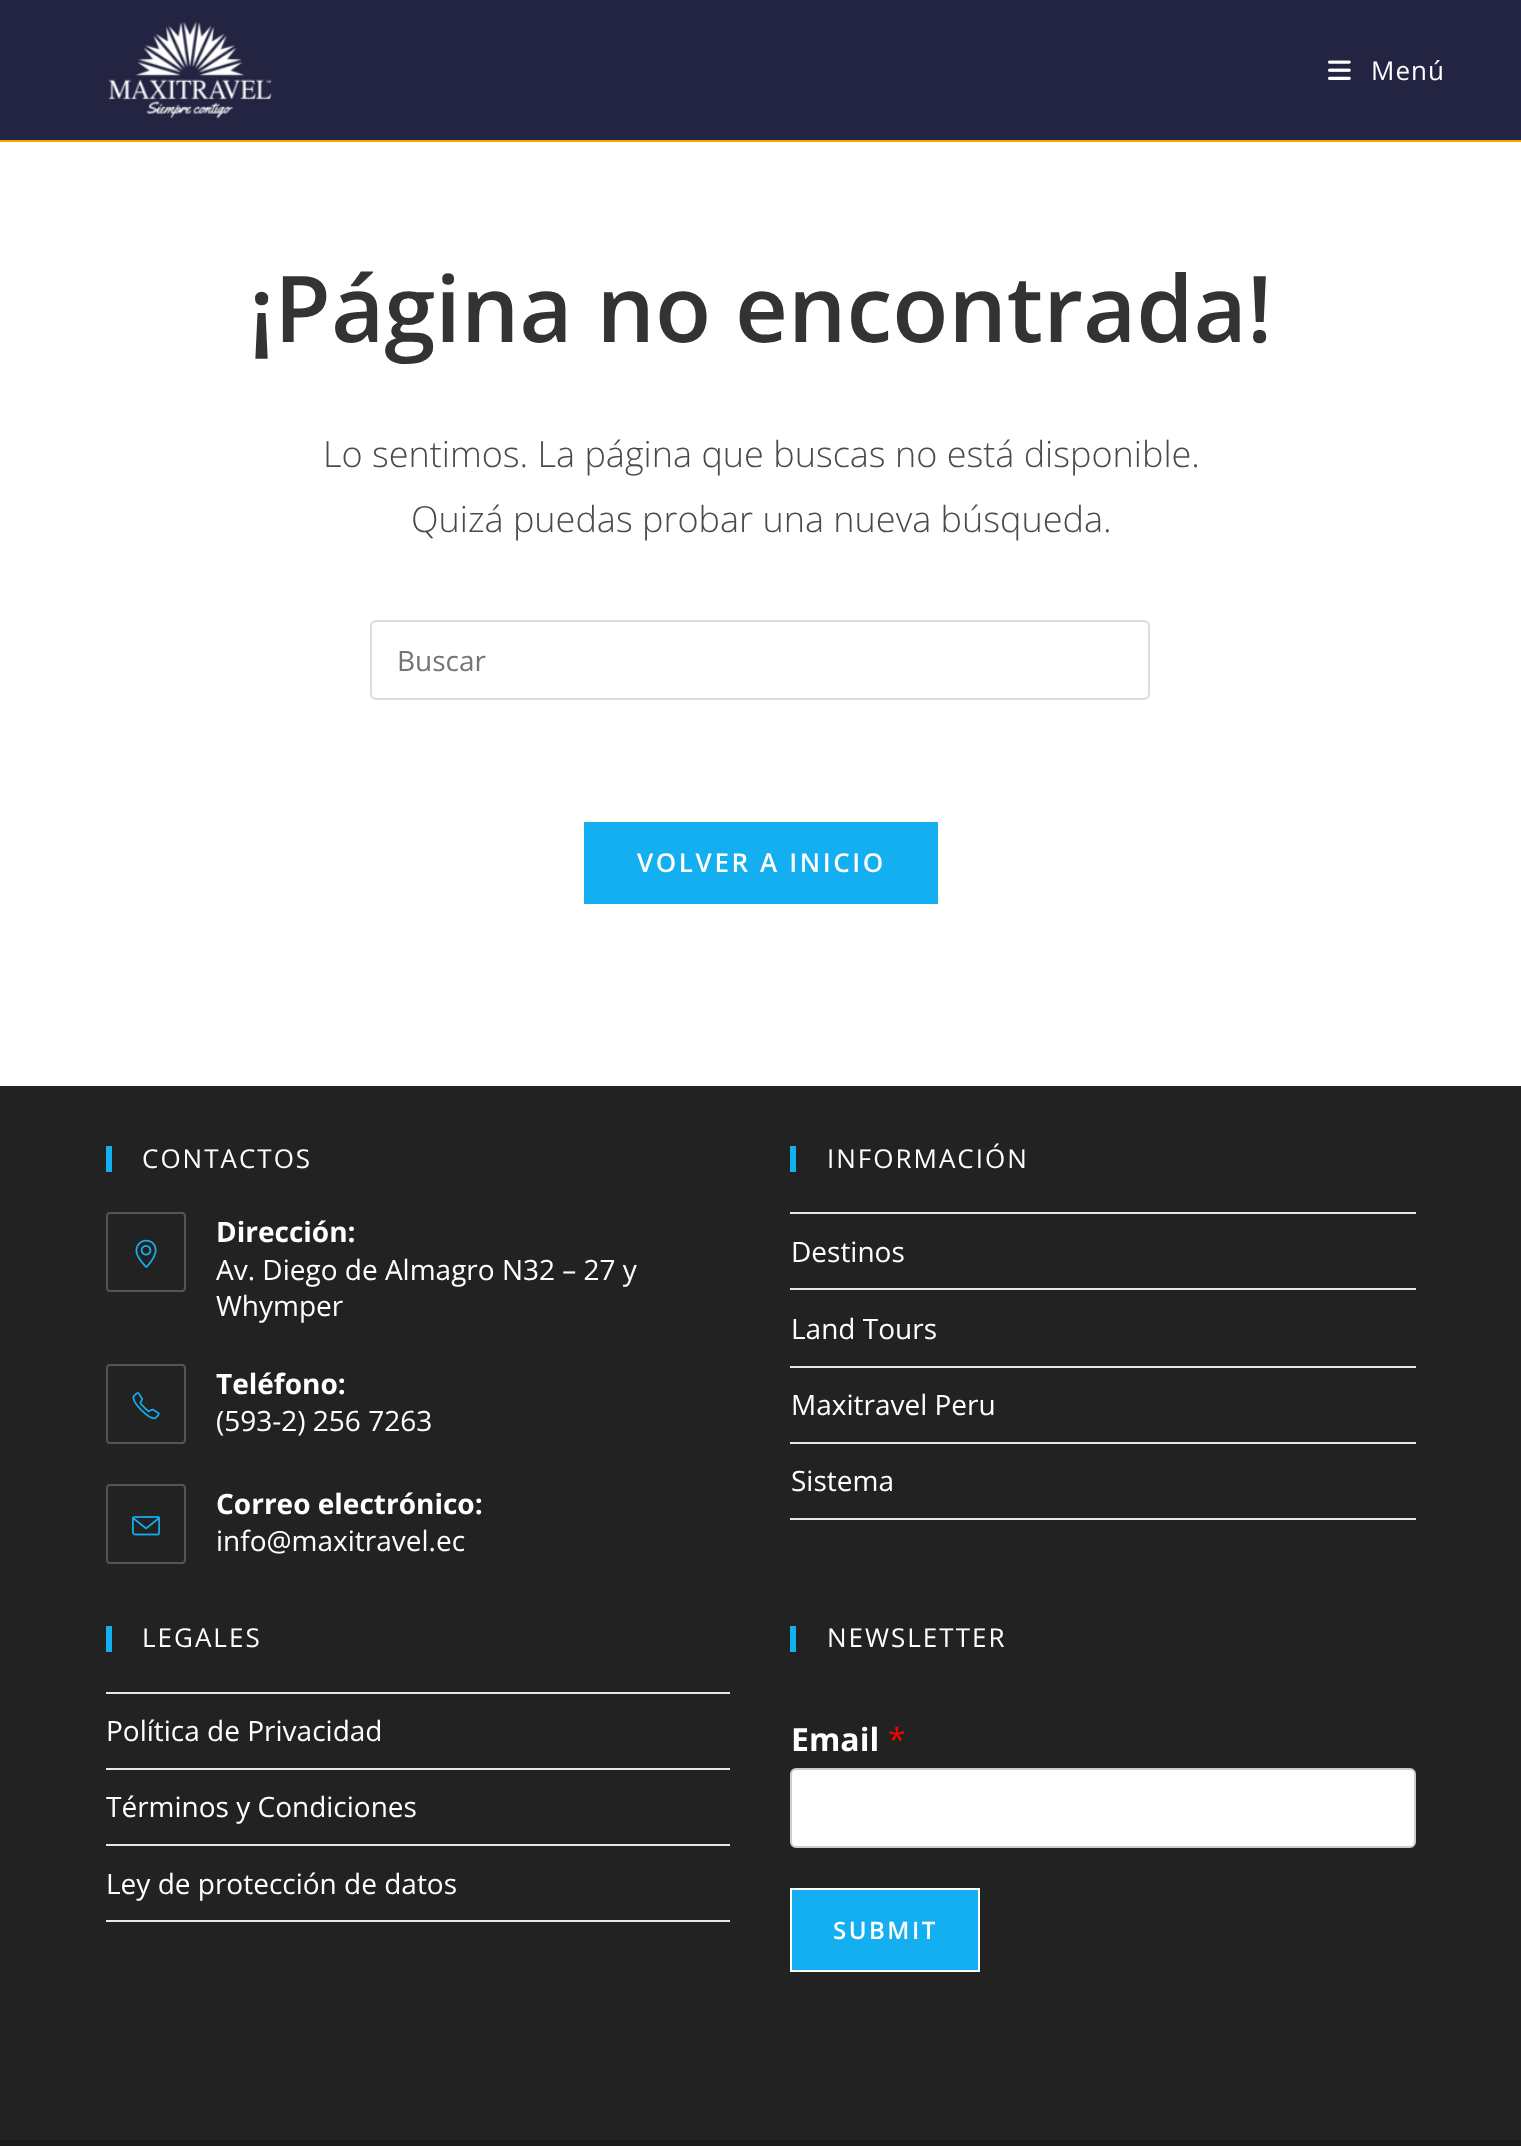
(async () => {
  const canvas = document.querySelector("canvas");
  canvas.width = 1521;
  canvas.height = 2146;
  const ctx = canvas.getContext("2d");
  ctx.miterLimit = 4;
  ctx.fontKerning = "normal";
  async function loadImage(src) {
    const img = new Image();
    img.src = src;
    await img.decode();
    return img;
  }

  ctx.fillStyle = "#ffffff";
  ctx.fillRect(0, 0, 1521, 2146);
  ctx.fillStyle = "#232342";
  ctx.fillRect(0, 0, 1521, 140);
  ctx.fillStyle = "#f8a800";
  ctx.fillRect(0, 140, 1521, 2);
  ctx.drawImage(await loadImage("img/1.png"), 108, 21, 164, 98);
  ctx.drawImage(await loadImage("img/2.png"), 1328, 60, 23, 20);
  ctx.beginPath();
  ctx.roundRect(371, 621, 778, 78, 5);
  ctx.strokeStyle = "#dddddd";
  ctx.lineWidth = 2;
  ctx.stroke();
  for (const [x, y, w, h, color] of [
    [584, 822, 354, 82, "#13aff0"],
    [0, 1086, 1521, 1054, "#222222"],
    [106, 1146, 6, 26, "#13aff0"],
  ]) {
    ctx.fillStyle = color;
    ctx.fillRect(x, y, w, h);
  }
  ctx.beginPath();
  ctx.roundRect(107, 1213, 78, 78, 3);
  ctx.strokeStyle = "#555555";
  ctx.stroke();
  ctx.drawImage(await loadImage("img/3.png"), 135, 1239, 22, 29);
  ctx.beginPath();
  ctx.roundRect(107, 1365, 78, 78, 3);
  ctx.stroke();
  ctx.drawImage(await loadImage("img/4.png"), 132, 1392, 28, 28);
  ctx.beginPath();
  ctx.roundRect(107, 1485, 78, 78, 3);
  ctx.stroke();
  ctx.drawImage(await loadImage("img/5.png"), 132, 1516, 29, 20);
  for (const [x, y, w, h, color] of [
    [790, 1146, 6, 26, "#13aff0"],
    [790, 1212, 626, 2, "#e9e9e9"],
    [790, 1288, 626, 2, "#e9e9e9"],
    [790, 1366, 626, 2, "#e9e9e9"],
    [790, 1442, 626, 2, "#e9e9e9"],
    [790, 1518, 626, 2, "#e9e9e9"],
    [106, 1626, 6, 26, "#13aff0"],
    [106, 1692, 624, 2, "#e9e9e9"],
    [106, 1768, 624, 2, "#e9e9e9"],
    [106, 1844, 624, 2, "#e9e9e9"],
    [106, 1920, 624, 2, "#e9e9e9"],
    [790, 1626, 6, 26, "#13aff0"],
  ]) {
    ctx.fillStyle = color;
    ctx.fillRect(x, y, w, h);
  }
  ctx.fillStyle = "#ffffff";
  ctx.beginPath();
  ctx.roundRect(791, 1769, 624, 78, 5);
  ctx.fill();
  ctx.strokeStyle = "#cccccc";
  ctx.stroke();
  ctx.fillStyle = "#13aff0";
  ctx.beginPath();
  ctx.rect(791, 1889, 188, 82);
  ctx.fill();
  ctx.strokeStyle = "#ffffff";
  ctx.stroke();
  ctx.fillStyle = "#1b1b1b";
  ctx.fillRect(0, 2140, 1521, 6);
  ctx.letterSpacing = "1px";
  ctx.font = "26px Open Sans";
  ctx.fillStyle = "#ffffff";
  ctx.fillText("Menú", 1371, 80);
  ctx.letterSpacing = "0px";
  ctx.font = "600 92px Open Sans";
  ctx.fillStyle = "#333333";
  ctx.fillText("¡Página no encontrada!", 249, 342);
  ctx.font = "300 36px Open Sans";
  ctx.fillStyle = "#4a4a4a";
  ctx.fillText("Lo sentimos. La página que buscas no está disponible.", 323, 467);
  ctx.fillText("Quizá puedas probar una nueva búsqueda.", 411, 532);
  ctx.font = "28px Open Sans";
  ctx.fillStyle = "#757575";
  ctx.fillText("Buscar", 397, 671);
  ctx.letterSpacing = "2.6px";
  ctx.font = "600 26px Open Sans";
  ctx.fillStyle = "#ffffff";
  ctx.fillText("VOLVER A INICIO", 637, 872);
  ctx.letterSpacing = "2px";
  ctx.font = "26px Open Sans";
  ctx.fillText("CONTACTOS", 142, 1168);
  ctx.letterSpacing = "0px";
  ctx.font = "bold 28px Open Sans";
  ctx.fillText("Dirección:", 216, 1242);
  ctx.font = "28px Open Sans";
  ctx.fillText("Av. Diego de Almagro N32 – 27 y", 216, 1280);
  ctx.fillText("Whymper", 216, 1316);
  ctx.font = "bold 28px Open Sans";
  ctx.fillText("Teléfono:", 216, 1394);
  ctx.font = "28px Open Sans";
  ctx.fillText("(593-2) 256 7263", 216, 1431);
  ctx.font = "bold 28px Open Sans";
  ctx.fillText("Correo electrónico:", 216, 1514);
  ctx.font = "28px Open Sans";
  ctx.fillText("info@maxitravel.ec", 216, 1551);
  ctx.letterSpacing = "2px";
  ctx.font = "26px Open Sans";
  ctx.fillText("INFORMACIÓN", 827, 1168);
  ctx.letterSpacing = "0px";
  ctx.font = "28px Open Sans";
  for (const [text, x, y] of [
    ["Destinos", 791, 1262],
    ["Land Tours", 791, 1339],
    ["Maxitravel Peru", 791, 1415],
    ["Sistema", 791, 1491],
  ]) {
    ctx.fillText(text, x, y);
  }
  ctx.letterSpacing = "2px";
  ctx.font = "26px Open Sans";
  ctx.fillText("LEGALES", 142, 1647);
  ctx.letterSpacing = "0px";
  ctx.font = "28px Open Sans";
  for (const [text, x, y] of [
    ["Política de Privacidad", 106, 1741],
    ["Términos y Condiciones", 106, 1817],
    ["Ley de protección de datos", 106, 1894],
  ]) {
    ctx.fillText(text, x, y);
  }
  ctx.letterSpacing = "2px";
  ctx.font = "26px Open Sans";
  ctx.fillText("NEWSLETTER", 827, 1647);
  ctx.letterSpacing = "0px";
  ctx.font = "bold 32px Open Sans";
  ctx.fillText("Email", 791, 1751);
  ctx.font = "32px Open Sans";
  ctx.fillStyle = "#ff0000";
  ctx.fillText("*", 888, 1751);
  ctx.letterSpacing = "2.5px";
  ctx.font = "600 24px Open Sans";
  ctx.fillStyle = "#ffffff";
  ctx.fillText("SUBMIT", 833, 1939);
})();
